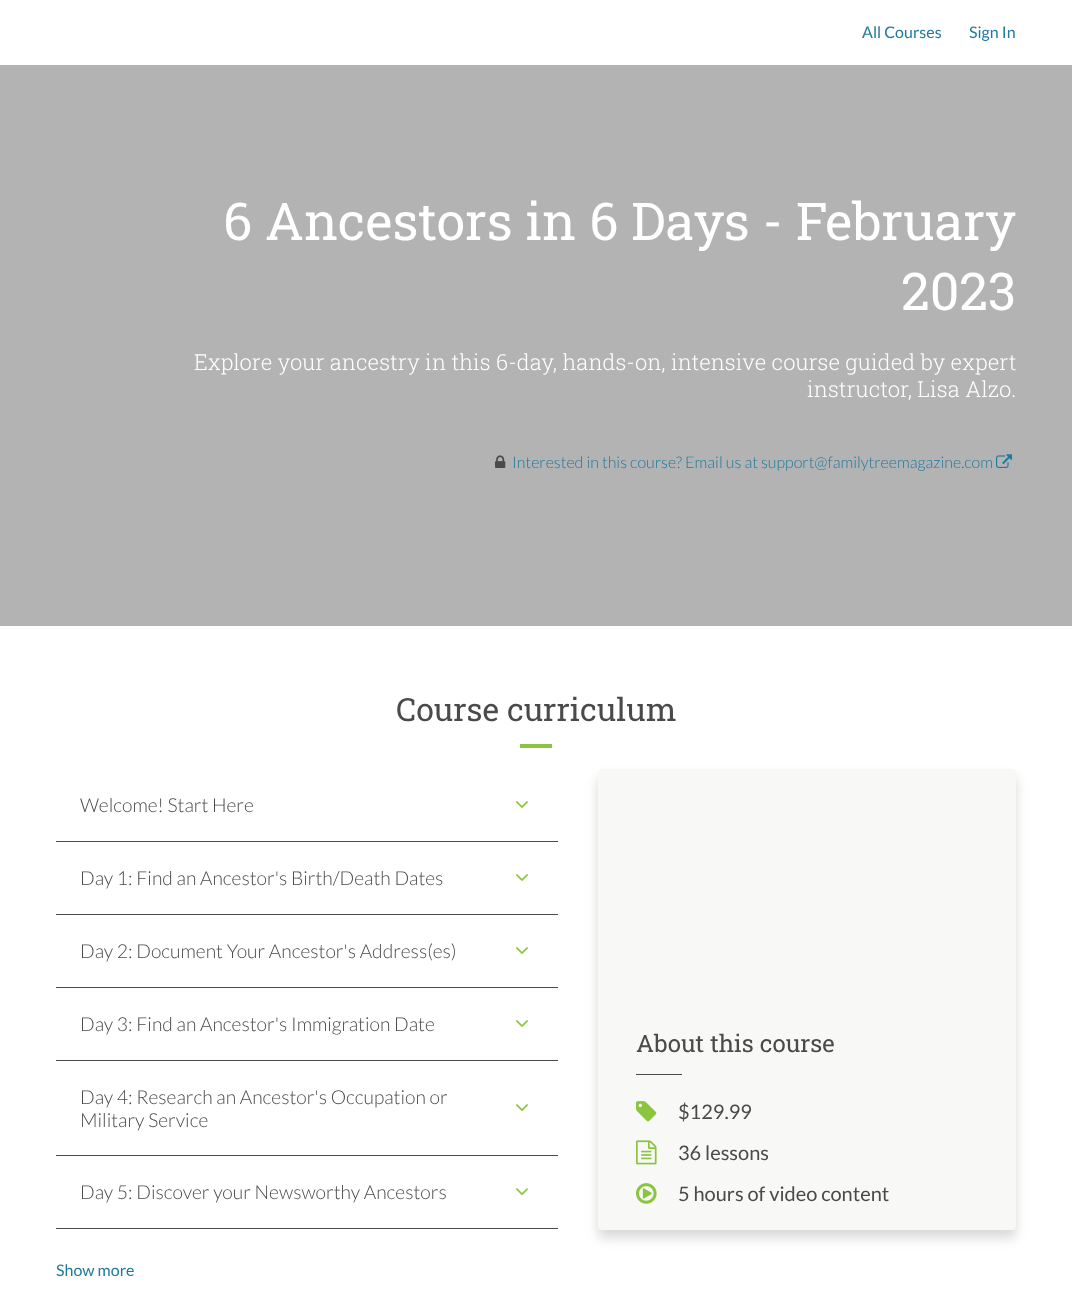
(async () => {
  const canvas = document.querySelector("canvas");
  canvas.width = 1072;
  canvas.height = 1301;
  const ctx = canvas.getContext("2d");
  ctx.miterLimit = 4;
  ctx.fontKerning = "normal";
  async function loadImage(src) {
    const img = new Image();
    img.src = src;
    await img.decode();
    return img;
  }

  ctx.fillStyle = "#ffffff";
  ctx.fillRect(0, 0, 1072, 1301);
  ctx.fillStyle = "#b3b3b3";
  ctx.fillRect(0, 65, 1072, 561);
  ctx.drawImage(await loadImage("img/1.png"), 495, 455, 11, 13);
  ctx.drawImage(await loadImage("img/2.png"), 996, 454, 16, 14);
  ctx.fillStyle = "#8bc53f";
  ctx.fillRect(520, 744, 32, 4);
  ctx.fillStyle = "#4a4a4a";
  ctx.fillRect(56, 841, 502, 1);
  ctx.drawImage(await loadImage("img/3.png"), 516, 801, 12, 7);
  ctx.fillRect(56, 914, 502, 1);
  ctx.drawImage(await loadImage("img/3.png"), 516, 874, 12, 7);
  ctx.fillRect(56, 987, 502, 1);
  ctx.drawImage(await loadImage("img/3.png"), 516, 947, 12, 7);
  ctx.fillRect(56, 1060, 502, 1);
  ctx.drawImage(await loadImage("img/3.png"), 516, 1020, 12, 7);
  ctx.fillRect(56, 1155, 502, 1);
  ctx.drawImage(await loadImage("img/4.png"), 516, 1104, 12, 7);
  ctx.fillRect(56, 1228, 502, 1);
  ctx.drawImage(await loadImage("img/5.png"), 516, 1188, 12, 7);
  ctx.fillStyle = "rgba(0, 0, 0, 0.15)";
  ctx.filter = "blur(6px)";
  ctx.beginPath();
  ctx.roundRect(598, 777, 418, 461, 4);
  ctx.fill();
  ctx.filter = "none";
  ctx.fillStyle = "#f8f8f6";
  ctx.beginPath();
  ctx.roundRect(598, 769, 418, 461, 4);
  ctx.fill();
  ctx.fillStyle = "#4a4a4a";
  ctx.fillRect(636, 1074, 46, 1);
  ctx.drawImage(await loadImage("img/6.png"), 636, 1101, 21, 21);
  ctx.drawImage(await loadImage("img/7.png"), 636, 1140, 21, 25);
  ctx.drawImage(await loadImage("img/8.png"), 636, 1183, 21, 21);
  ctx.font = "16px Lato";
  ctx.fillStyle = "#207a9d";
  ctx.fillText("All Courses", 862, 38);
  ctx.fillText("Sign In", 969, 38);
  ctx.font = "52px Roboto Slab";
  ctx.fillStyle = "#ffffff";
  ctx.fillText("6 Ancestors in 6 Days - February", 223, 240);
  ctx.fillText("2023", 901, 310);
  ctx.font = "300 22px Roboto Slab";
  ctx.fillText("Explore your ancestry in this 6-day, hands-on, intensive course guided by expert", 194, 370);
  ctx.fillText("instructor, Lisa Alzo.", 807, 397);
  ctx.font = "300 16px Lato";
  ctx.fillStyle = "#207a9d";
  ctx.fillText("Interested in this course? Email us at support@familytreemagazine.com", 512, 468);
  ctx.font = "32px Roboto Slab";
  ctx.fillStyle = "#4a4a4a";
  ctx.fillText("Course curriculum", 396, 721);
  ctx.font = "300 19.25px Lato";
  for (const [text, x, y] of [
    ["Welcome! Start Here", 80, 812],
    ["Day 1: Find an Ancestor's Birth/Death Dates", 80, 885],
    ["Day 2: Document Your Ancestor's Address(es)", 80, 958],
    ["Day 3: Find an Ancestor's Immigration Date", 80, 1031],
    ["Day 4: Research an Ancestor's Occupation or", 80, 1104],
    ["Military Service", 80, 1127],
    ["Day 5: Discover your Newsworthy Ancestors", 80, 1199],
  ]) {
    ctx.fillText(text, x, y);
  }
  ctx.font = "16px Lato";
  ctx.fillStyle = "#207a9d";
  ctx.fillText("Show more", 56, 1276);
  ctx.font = "24px Roboto Slab";
  ctx.fillStyle = "#4a4a4a";
  ctx.fillText("About this course", 636, 1052);
  ctx.font = "20px Lato";
  for (const [text, x, y] of [
    ["$129.99", 678, 1119],
    ["36 lessons", 678, 1160],
    ["5 hours of video content", 678, 1201],
  ]) {
    ctx.fillText(text, x, y);
  }
})();
